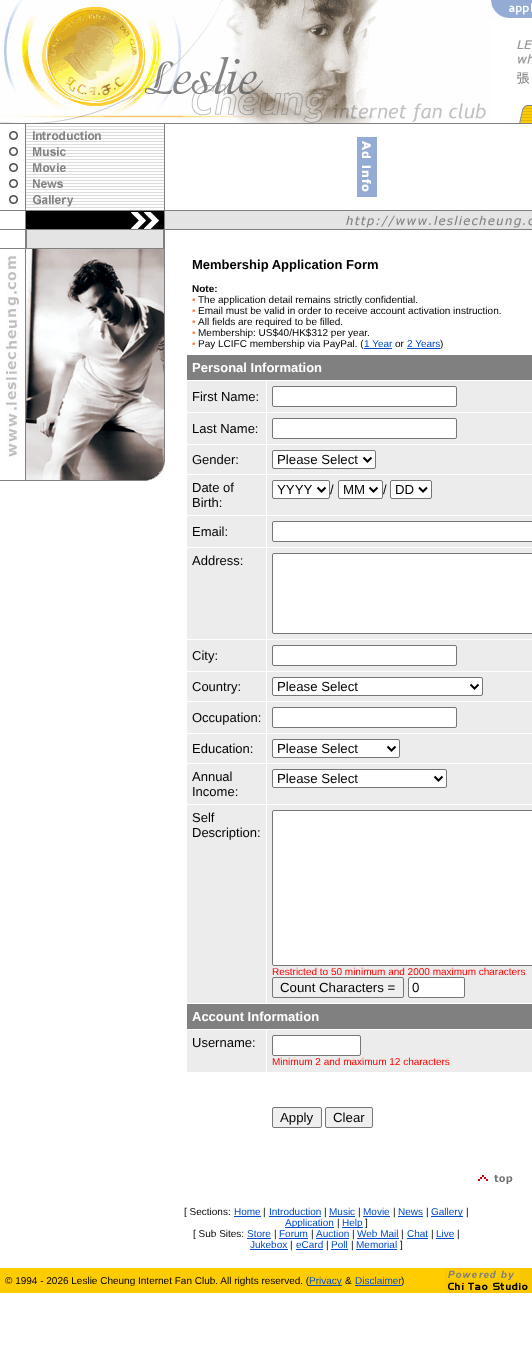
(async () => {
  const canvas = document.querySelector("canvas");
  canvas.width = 532;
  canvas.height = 1347;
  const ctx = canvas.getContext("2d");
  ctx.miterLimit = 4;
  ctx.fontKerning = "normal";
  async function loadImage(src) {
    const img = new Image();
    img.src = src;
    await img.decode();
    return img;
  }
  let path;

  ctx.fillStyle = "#ffffff";
  ctx.fillRect(0, 0, 532, 1347);
  ctx.drawImage(await loadImage("img/1.png"), 0, 0, 491, 123);
  ctx.drawImage(await loadImage("img/2.png"), 491, 0, 41, 18);
  ctx.drawImage(await loadImage("img/3.png"), 517, 40, 15, 44);
  ctx.drawImage(await loadImage("img/4.png"), 519, 105, 13, 18);
  ctx.fillStyle = "#808080";
  ctx.fillRect(0, 123, 532, 1);
  ctx.drawImage(await loadImage("img/5.png"), 9, 131, 9, 9);
  ctx.fillRect(25, 124, 1, 86);
  ctx.drawImage(await loadImage("img/6.png"), 26, 126, 138, 16);
  ctx.fillRect(164, 124, 1, 86);
  ctx.drawImage(await loadImage("img/5.png"), 9, 147, 9, 9);
  ctx.drawImage(await loadImage("img/7.png"), 26, 144, 138, 13);
  ctx.drawImage(await loadImage("img/8.png"), 9, 163, 9, 9);
  ctx.drawImage(await loadImage("img/9.png"), 26, 159, 138, 13);
  ctx.drawImage(await loadImage("img/10.png"), 9, 179, 9, 9);
  ctx.drawImage(await loadImage("img/11.png"), 26, 174, 138, 16);
  ctx.drawImage(await loadImage("img/12.png"), 9, 195, 9, 9);
  ctx.drawImage(await loadImage("img/13.png"), 26, 192, 138, 16);
  ctx.drawImage(await loadImage("img/14.png"), 357, 137, 20, 60);
  for (const [x, y, w, h, color] of [
    [0, 210, 532, 1, "#808080"],
    [25, 211, 1, 18, "#808080"],
    [26, 211, 138, 18, "#000000"],
  ]) {
    ctx.fillStyle = color;
    ctx.fillRect(x, y, w, h);
  }
  ctx.drawImage(await loadImage("img/15.png"), 131, 212, 28, 17);
  ctx.fillStyle = "#808080";
  ctx.fillRect(164, 211, 1, 18);
  ctx.fillStyle = "#e4e4e4";
  ctx.fillRect(165, 211, 367, 18);
  ctx.drawImage(await loadImage("img/16.png"), 346, 215, 186, 13);
  for (const [x, y, w, h, color] of [
    [0, 229, 532, 1, "#808080"],
    [25, 230, 2, 18, "#808080"],
    [27, 230, 136, 18, "#e4e4e4"],
    [163, 230, 2, 18, "#808080"],
    [0, 248, 165, 1, "#808080"],
  ]) {
    ctx.fillStyle = color;
    ctx.fillRect(x, y, w, h);
  }
  ctx.drawImage(await loadImage("img/17.png"), 6, 256, 13, 201);
  ctx.fillRect(25, 249, 1, 231);
  ctx.drawImage(await loadImage("img/18.png"), 26, 249, 138, 213);
  ctx.fillRect(164, 249, 1, 213);
  ctx.drawImage(await loadImage("img/19.png"), 26, 462, 138, 18);
  ctx.drawImage(await loadImage("img/20.png"), 164, 462, 1, 4);
  ctx.fillRect(0, 480, 26, 1);
  ctx.drawImage(await loadImage("img/21.png"), 26, 480, 124, 1);
  for (const [x, y, w, h, color] of [
    [364, 348, 28, 1, "#024ac9"],
    [407, 348, 33, 1, "#024ac9"],
    [187, 355, 345, 25, "#808080"],
    [187, 381, 79, 31, "#ececec"],
    [267, 381, 265, 31, "#ececec"],
  ]) {
    ctx.fillStyle = color;
    ctx.fillRect(x, y, w, h);
  }
  ctx.fillStyle = "#ffffff";
  ctx.beginPath();
  ctx.roundRect(272.5, 386.5, 184, 20, 1.5);
  ctx.fill();
  ctx.strokeStyle = "#767676";
  ctx.stroke();
  ctx.fillStyle = "#ececec";
  ctx.fillRect(187, 413, 79, 31);
  ctx.fillRect(267, 413, 265, 31);
  ctx.fillStyle = "#ffffff";
  ctx.beginPath();
  ctx.roundRect(272.5, 418.5, 184, 20, 1.5);
  ctx.fill();
  ctx.stroke();
  ctx.fillStyle = "#ececec";
  ctx.fillRect(187, 445, 79, 29);
  ctx.fillRect(267, 445, 265, 29);
  ctx.fillStyle = "#ffffff";
  ctx.beginPath();
  ctx.roundRect(272.5, 450.5, 103, 18, 1.5);
  ctx.fill();
  ctx.stroke();
  path = new Path2D("M363.5 457.5L367.5 461.5L371.5 457.5");
  ctx.strokeStyle = "#000000";
  ctx.lineWidth = 2;
  ctx.stroke(path);
  ctx.fillStyle = "#ececec";
  ctx.fillRect(187, 475, 79, 40);
  ctx.fillRect(267, 475, 265, 40);
  ctx.fillStyle = "#ffffff";
  ctx.beginPath();
  ctx.roundRect(272.5, 480.5, 57, 18, 1.5);
  ctx.fill();
  ctx.strokeStyle = "#767676";
  ctx.lineWidth = 1;
  ctx.stroke();
  path = new Path2D("M317.5 487.5L321.5 491.5L325.5 487.5");
  ctx.strokeStyle = "#000000";
  ctx.lineWidth = 2;
  ctx.stroke(path);
  ctx.beginPath();
  ctx.roundRect(338.5, 480.5, 44, 18, 1.5);
  ctx.fill();
  ctx.strokeStyle = "#767676";
  ctx.lineWidth = 1;
  ctx.stroke();
  path = new Path2D("M369.5 487.5L373.5 491.5L377.5 487.5");
  ctx.strokeStyle = "#000000";
  ctx.lineWidth = 2;
  ctx.stroke(path);
  ctx.beginPath();
  ctx.roundRect(390.5, 480.5, 41, 18, 1.5);
  ctx.fill();
  ctx.strokeStyle = "#767676";
  ctx.lineWidth = 1;
  ctx.stroke();
  path = new Path2D("M419 487.5L423 491.5L427 487.5");
  ctx.strokeStyle = "#000000";
  ctx.lineWidth = 2;
  ctx.stroke(path);
  ctx.fillStyle = "#ececec";
  ctx.fillRect(187, 516, 79, 31);
  ctx.fillRect(267, 516, 265, 31);
  ctx.fillStyle = "#ffffff";
  ctx.beginPath();
  ctx.roundRect(272.5, 521.5, 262, 20, 1.5);
  ctx.fill();
  ctx.strokeStyle = "#767676";
  ctx.lineWidth = 1;
  ctx.stroke();
  ctx.fillStyle = "#ececec";
  ctx.fillRect(187, 548, 79, 91);
  ctx.fillRect(267, 548, 265, 91);
  ctx.fillStyle = "#ffffff";
  ctx.beginPath();
  ctx.roundRect(272.5, 553.5, 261, 80, 1.5);
  ctx.fill();
  ctx.stroke();
  ctx.fillStyle = "#ececec";
  ctx.fillRect(187, 640, 79, 31);
  ctx.fillRect(267, 640, 265, 31);
  ctx.fillStyle = "#ffffff";
  ctx.beginPath();
  ctx.roundRect(272.5, 645.5, 184, 20, 1.5);
  ctx.fill();
  ctx.stroke();
  ctx.fillStyle = "#ececec";
  ctx.fillRect(187, 672, 79, 29);
  ctx.fillRect(267, 672, 265, 29);
  ctx.fillStyle = "#ffffff";
  ctx.beginPath();
  ctx.roundRect(272.5, 677.5, 210, 18, 1.5);
  ctx.fill();
  ctx.stroke();
  path = new Path2D("M470.5 684.5L474.5 688.5L478.5 684.5");
  ctx.strokeStyle = "#000000";
  ctx.lineWidth = 2;
  ctx.stroke(path);
  ctx.fillStyle = "#ececec";
  ctx.fillRect(187, 702, 79, 31);
  ctx.fillRect(267, 702, 265, 31);
  ctx.fillStyle = "#ffffff";
  ctx.beginPath();
  ctx.roundRect(272.5, 707.5, 184, 20, 1.5);
  ctx.fill();
  ctx.strokeStyle = "#767676";
  ctx.lineWidth = 1;
  ctx.stroke();
  ctx.fillStyle = "#ececec";
  ctx.fillRect(187, 734, 79, 29);
  ctx.fillRect(267, 734, 265, 29);
  ctx.fillStyle = "#ffffff";
  ctx.beginPath();
  ctx.roundRect(272.5, 739.5, 127, 18, 1.5);
  ctx.fill();
  ctx.stroke();
  path = new Path2D("M387.5 746.5L391.5 750.5L395.5 746.5");
  ctx.strokeStyle = "#000000";
  ctx.lineWidth = 2;
  ctx.stroke(path);
  ctx.fillStyle = "#ececec";
  ctx.fillRect(187, 764, 79, 40);
  ctx.fillRect(267, 764, 265, 40);
  ctx.fillStyle = "#ffffff";
  ctx.beginPath();
  ctx.roundRect(272.5, 769.5, 174, 18, 1.5);
  ctx.fill();
  ctx.strokeStyle = "#767676";
  ctx.lineWidth = 1;
  ctx.stroke();
  path = new Path2D("M434.5 776.5L438.5 780.5L442.5 776.5");
  ctx.strokeStyle = "#000000";
  ctx.lineWidth = 2;
  ctx.stroke(path);
  ctx.fillStyle = "#ececec";
  ctx.fillRect(187, 805, 79, 198);
  ctx.fillRect(267, 805, 265, 198);
  ctx.fillStyle = "#ffffff";
  ctx.beginPath();
  ctx.roundRect(272.5, 810.5, 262, 155, 1.5);
  ctx.fill();
  ctx.strokeStyle = "#767676";
  ctx.lineWidth = 1;
  ctx.stroke();
  ctx.fillStyle = "#efefef";
  ctx.beginPath();
  ctx.roundRect(272.5, 977.5, 131, 20, 1.5);
  ctx.fill();
  ctx.stroke();
  ctx.fillStyle = "#ffffff";
  ctx.beginPath();
  ctx.roundRect(408.5, 977.5, 56, 20, 1.5);
  ctx.fill();
  ctx.stroke();
  for (const [x, y, w, h, color] of [
    [187, 1004, 345, 25, "#808080"],
    [187, 1030, 79, 42, "#ececec"],
    [267, 1030, 265, 42, "#ececec"],
  ]) {
    ctx.fillStyle = color;
    ctx.fillRect(x, y, w, h);
  }
  ctx.fillStyle = "#ffffff";
  ctx.beginPath();
  ctx.roundRect(272.5, 1035.5, 88, 20, 1.5);
  ctx.fill();
  ctx.stroke();
  ctx.fillStyle = "#efefef";
  ctx.beginPath();
  ctx.roundRect(272.5, 1107.5, 49, 20, 1.5);
  ctx.fill();
  ctx.stroke();
  ctx.beginPath();
  ctx.roundRect(325.5, 1107.5, 47, 20, 1.5);
  ctx.fill();
  ctx.stroke();
  ctx.drawImage(await loadImage("img/22.png"), 478, 1175, 35, 9);
  for (const [x, y, w, h, color] of [
    [234, 1216, 27, 1, "#024ac9"],
    [269, 1216, 52, 1, "#024ac9"],
    [329, 1216, 26, 1, "#024ac9"],
    [363, 1216, 27, 1, "#024ac9"],
    [398, 1216, 25, 1, "#024ac9"],
    [431, 1216, 32, 1, "#024ac9"],
    [285, 1227, 49, 1, "#024ac9"],
    [342, 1227, 21, 1, "#024ac9"],
    [247, 1238, 24, 1, "#024ac9"],
    [279, 1238, 29, 1, "#024ac9"],
    [316, 1238, 33, 1, "#024ac9"],
    [357, 1238, 42, 1, "#024ac9"],
    [407, 1238, 21, 1, "#024ac9"],
    [436, 1238, 18, 1, "#024ac9"],
    [250, 1249, 38, 1, "#024ac9"],
    [296, 1249, 27, 1, "#024ac9"],
    [331, 1249, 17, 1, "#024ac9"],
    [356, 1249, 41, 1, "#024ac9"],
    [0, 1268, 445, 25, "#ffcc00"],
  ]) {
    ctx.fillStyle = color;
    ctx.fillRect(x, y, w, h);
  }
  ctx.drawImage(await loadImage("img/23.png"), 445, 1268, 87, 25);
  ctx.fillStyle = "#024ac9";
  ctx.fillRect(355, 1285, 46, 1);
  ctx.font = "bold 13px Liberation Sans";
  ctx.fillStyle = "#000000";
  ctx.fillText("Membership Application Form", 192, 269);
  ctx.font = "bold 10px Liberation Sans";
  ctx.fillText("Note:", 192, 292);
  ctx.font = "10px Liberation Sans";
  ctx.fillStyle = "#ff8040";
  ctx.fillText("•", 192, 303);
  ctx.fillStyle = "#000000";
  ctx.fillText("The application detail remains strictly confidential.", 198, 303);
  ctx.fillStyle = "#ff8040";
  ctx.fillText("•", 192, 314);
  ctx.fillStyle = "#000000";
  ctx.fillText("Email must be valid in order to receive account activation instruction.", 198, 314);
  ctx.fillStyle = "#ff8040";
  ctx.fillText("•", 192, 325);
  ctx.fillStyle = "#000000";
  ctx.fillText("All fields are required to be filled.", 198, 325);
  ctx.fillStyle = "#ff8040";
  ctx.fillText("•", 192, 336);
  ctx.fillStyle = "#000000";
  ctx.fillText("Membership: US$40/HK$312 per year.", 198, 336);
  ctx.fillStyle = "#ff8040";
  ctx.fillText("•", 192, 347);
  ctx.fillStyle = "#000000";
  ctx.fillText("Pay LCIFC membership via PayPal. (", 198, 347);
  ctx.fillStyle = "#024ac9";
  ctx.fillText("1 Year", 364, 347);
  ctx.fillStyle = "#000000";
  ctx.fillText("or", 395, 347);
  ctx.fillStyle = "#024ac9";
  ctx.fillText("2 Years", 407, 347);
  ctx.fillStyle = "#000000";
  ctx.fillText(")", 440, 347);
  ctx.font = "bold 13px Liberation Sans";
  ctx.fillStyle = "#ffffff";
  ctx.fillText("Personal Information", 192, 372);
  ctx.font = "13px Liberation Sans";
  ctx.fillStyle = "#000000";
  for (const [text, x, y] of [
    ["First Name:", 192, 401],
    ["Last Name:", 192, 433],
    ["Gender:", 192, 464],
  ]) {
    ctx.fillText(text, x, y);
  }
  ctx.font = "13.25px Liberation Sans";
  ctx.fillText("Please Select", 277, 464);
  ctx.font = "13px Liberation Sans";
  ctx.fillText("Date of", 192, 492);
  ctx.fillText("Birth:", 192, 507);
  ctx.font = "13.25px Liberation Sans";
  ctx.fillText("YYYY", 277, 494);
  ctx.font = "13px Liberation Sans";
  ctx.fillText("/", 330, 494);
  ctx.font = "13.25px Liberation Sans";
  ctx.fillText("MM", 343, 494);
  ctx.font = "13px Liberation Sans";
  ctx.fillText("/", 383, 494);
  ctx.font = "13.25px Liberation Sans";
  ctx.fillText("DD", 395, 494);
  ctx.font = "13px Liberation Sans";
  for (const [text, x, y] of [
    ["Email:", 192, 536],
    ["Address:", 192, 565],
    ["City:", 192, 660],
    ["Country:", 192, 691],
  ]) {
    ctx.fillText(text, x, y);
  }
  ctx.font = "13.25px Liberation Sans";
  ctx.fillText("Please Select", 277, 691);
  ctx.font = "13px Liberation Sans";
  ctx.fillText("Occupation:", 192, 722);
  ctx.fillText("Education:", 192, 753);
  ctx.font = "13.25px Liberation Sans";
  ctx.fillText("Please Select", 277, 753);
  ctx.font = "13px Liberation Sans";
  ctx.fillText("Annual", 192, 781);
  ctx.fillText("Income:", 192, 796);
  ctx.font = "13.25px Liberation Sans";
  ctx.fillText("Please Select", 277, 783);
  ctx.font = "13px Liberation Sans";
  ctx.fillText("Self", 192, 822);
  ctx.fillText("Description:", 192, 837);
  ctx.font = "10px Liberation Sans";
  ctx.fillStyle = "#ff0000";
  ctx.fillText("Restricted to 50 minimum and 2000 maximum characters", 272, 975);
  ctx.font = "13.25px Liberation Sans";
  ctx.fillStyle = "#000000";
  ctx.fillText("Count Characters =", 280, 992);
  ctx.fillText("0", 412, 992);
  ctx.font = "bold 13px Liberation Sans";
  ctx.fillStyle = "#ffffff";
  ctx.fillText("Account Information", 192, 1021);
  ctx.font = "13px Liberation Sans";
  ctx.fillStyle = "#000000";
  ctx.fillText("Username:", 192, 1047);
  ctx.font = "10px Liberation Sans";
  ctx.fillStyle = "#ff0000";
  ctx.fillText("Minimum 2 and maximum 12 characters", 272, 1065);
  ctx.font = "13.25px Liberation Sans";
  ctx.fillStyle = "#000000";
  ctx.fillText("Apply", 280, 1122);
  ctx.fillText("Clear", 333, 1122);
  ctx.font = "10px Liberation Sans";
  ctx.fillText("[ Sections:", 184, 1215);
  ctx.fillStyle = "#024ac9";
  ctx.fillText("Home", 234, 1215);
  ctx.fillStyle = "#000000";
  ctx.fillText("|", 263, 1215);
  ctx.fillStyle = "#024ac9";
  ctx.fillText("Introduction", 269, 1215);
  ctx.fillStyle = "#000000";
  ctx.fillText("|", 324, 1215);
  ctx.fillStyle = "#024ac9";
  ctx.fillText("Music", 329, 1215);
  ctx.fillStyle = "#000000";
  ctx.fillText("|", 358, 1215);
  ctx.fillStyle = "#024ac9";
  ctx.fillText("Movie", 363, 1215);
  ctx.fillStyle = "#000000";
  ctx.fillText("|", 393, 1215);
  ctx.fillStyle = "#024ac9";
  ctx.fillText("News", 398, 1215);
  ctx.fillStyle = "#000000";
  ctx.fillText("|", 426, 1215);
  ctx.fillStyle = "#024ac9";
  ctx.fillText("Gallery", 431, 1215);
  ctx.fillStyle = "#000000";
  ctx.fillText("|", 466, 1215);
  ctx.fillStyle = "#024ac9";
  ctx.fillText("Application", 285, 1226);
  ctx.fillStyle = "#000000";
  ctx.fillText("|", 337, 1226);
  ctx.fillStyle = "#024ac9";
  ctx.fillText("Help", 342, 1226);
  ctx.fillStyle = "#000000";
  ctx.fillText("]", 365, 1226);
  ctx.fillText("[ Sub Sites:", 193, 1237);
  ctx.fillStyle = "#024ac9";
  ctx.fillText("Store", 247, 1237);
  ctx.fillStyle = "#000000";
  ctx.fillText("|", 274, 1237);
  ctx.fillStyle = "#024ac9";
  ctx.fillText("Forum", 279, 1237);
  ctx.fillStyle = "#000000";
  ctx.fillText("|", 311, 1237);
  ctx.fillStyle = "#024ac9";
  ctx.fillText("Auction", 316, 1237);
  ctx.fillStyle = "#000000";
  ctx.fillText("|", 352, 1237);
  ctx.fillStyle = "#024ac9";
  ctx.fillText("Web Mail", 357, 1237);
  ctx.fillStyle = "#000000";
  ctx.fillText("|", 401, 1237);
  ctx.fillStyle = "#024ac9";
  ctx.fillText("Chat", 407, 1237);
  ctx.fillStyle = "#000000";
  ctx.fillText("|", 431, 1237);
  ctx.fillStyle = "#024ac9";
  ctx.fillText("Live", 436, 1237);
  ctx.fillStyle = "#000000";
  ctx.fillText("|", 457, 1237);
  ctx.fillStyle = "#024ac9";
  ctx.fillText("Jukebox", 250, 1248);
  ctx.fillStyle = "#000000";
  ctx.fillText("|", 290, 1248);
  ctx.fillStyle = "#024ac9";
  ctx.fillText("eCard", 296, 1248);
  ctx.fillStyle = "#000000";
  ctx.fillText("|", 326, 1248);
  ctx.fillStyle = "#024ac9";
  ctx.fillText("Poll", 331, 1248);
  ctx.fillStyle = "#000000";
  ctx.fillText("|", 351, 1248);
  ctx.fillStyle = "#024ac9";
  ctx.fillText("Memorial", 356, 1248);
  ctx.fillStyle = "#000000";
  ctx.fillText("]", 400, 1248);
  ctx.fillText("© 1994 - 2026 Leslie Cheung Internet Fan Club. All rights reserved. (", 5, 1284);
  ctx.fillStyle = "#024ac9";
  ctx.fillRect(309, 1285, 33, 1);
  ctx.fillText("Privacy", 309, 1284);
  ctx.fillStyle = "#000000";
  ctx.fillText("&", 345, 1284);
  ctx.fillStyle = "#024ac9";
  ctx.fillText("Disclaimer", 355, 1284);
  ctx.fillStyle = "#000000";
  ctx.fillText(")", 401, 1284);
})();
